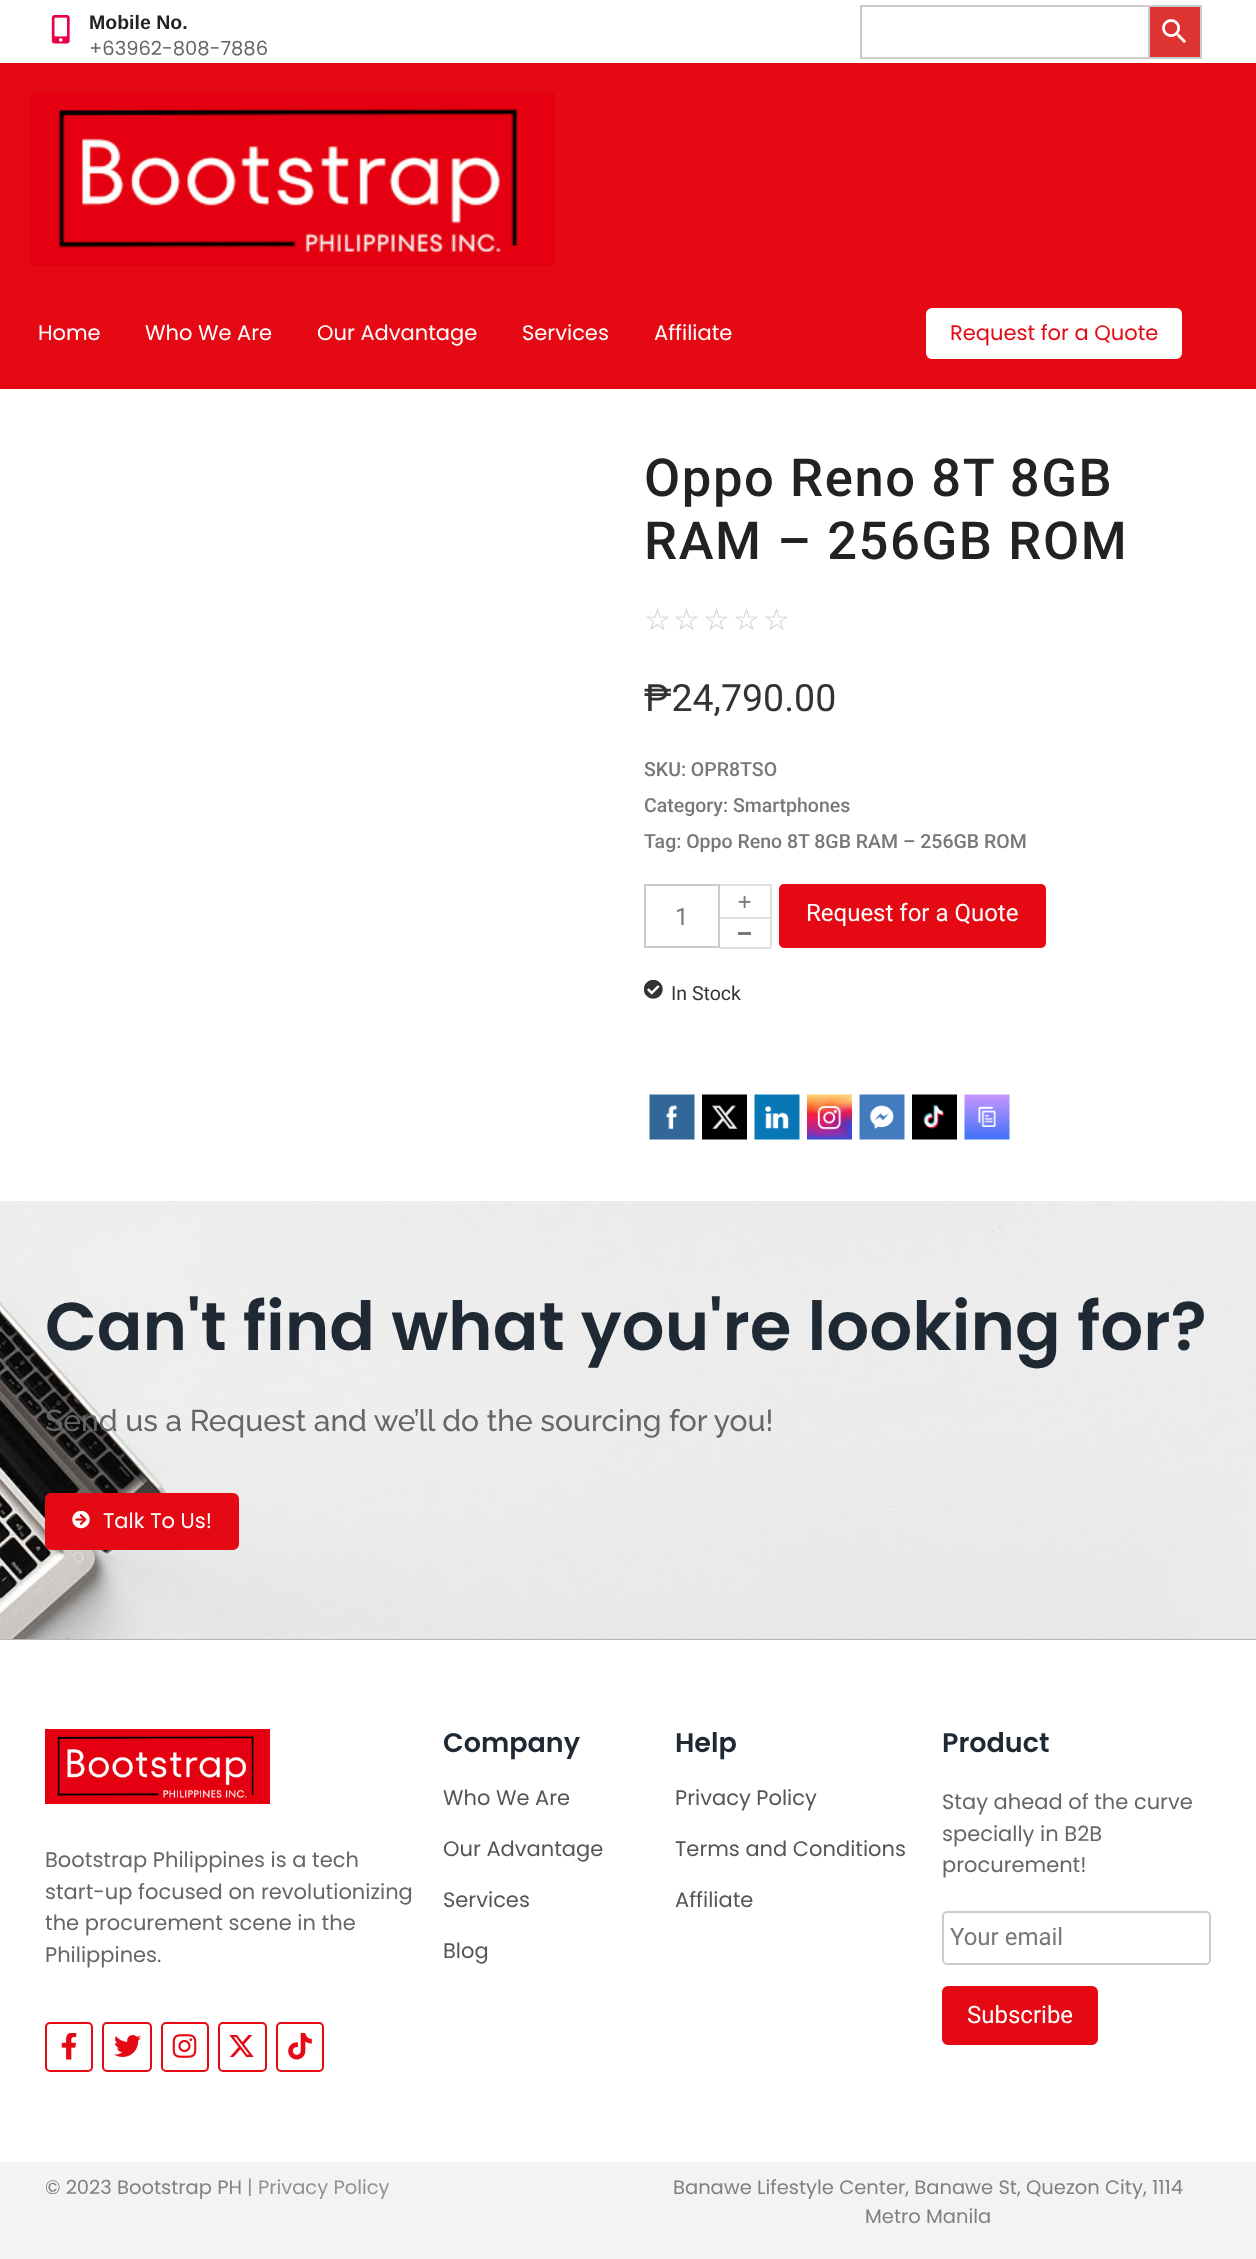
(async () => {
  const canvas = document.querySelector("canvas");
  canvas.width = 1256;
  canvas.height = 2259;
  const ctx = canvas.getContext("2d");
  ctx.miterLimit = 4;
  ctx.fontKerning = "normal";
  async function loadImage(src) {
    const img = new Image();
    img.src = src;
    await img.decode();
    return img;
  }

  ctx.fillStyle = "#ffffff";
  ctx.fillRect(0, 0, 1256, 2259);
  ctx.drawImage(await loadImage("img/1.png"), 51, 15, 19, 29);
  for (const [x, y, w, h, color] of [
    [860, 5, 288, 2, "#cccccc"],
    [860, 57, 288, 2, "#cccccc"],
    [860, 5, 2, 54, "#cccccc"],
  ]) {
    ctx.fillStyle = color;
    ctx.fillRect(x, y, w, h);
  }
  ctx.fillStyle = "#dd3333";
  ctx.beginPath();
  ctx.rect(1149, 6, 52, 52);
  ctx.fill();
  ctx.strokeStyle = "#cccccc";
  ctx.lineWidth = 2;
  ctx.stroke();
  ctx.drawImage(await loadImage("img/2.png"), 1162, 19, 25, 25);
  ctx.fillStyle = "#e50913";
  ctx.fillRect(0, 63, 1256, 326);
  ctx.drawImage(await loadImage("img/3.png"), 30, 93, 525, 173);
  ctx.fillStyle = "#ffffff";
  ctx.beginPath();
  ctx.roundRect(926, 308, 256, 51, 6);
  ctx.fill();
  ctx.strokeRect(645, 885, 74, 62);
  ctx.fillStyle = "#e0e0e0";
  ctx.fillRect(720, 884, 51, 2);
  ctx.fillRect(770, 884, 2, 33);
  ctx.drawImage(await loadImage("img/4.png"), 738, 895, 13, 13);
  for (const [x, y, w, h, color] of [
    [720, 917, 51, 2, "#e0e0e0"],
    [770, 917, 2, 31, "#e0e0e0"],
    [720, 947, 51, 2, "#e0e0e0"],
    [738, 932, 13, 3, "#787878"],
  ]) {
    ctx.fillStyle = color;
    ctx.fillRect(x, y, w, h);
  }
  ctx.fillStyle = "#e50913";
  ctx.beginPath();
  ctx.roundRect(780.5, 885.5, 264, 61, 3.5);
  ctx.fill();
  ctx.strokeStyle = "#e50913";
  ctx.lineWidth = 3;
  ctx.stroke();
  ctx.drawImage(await loadImage("img/5.png"), 644, 980, 19, 19);
  ctx.drawImage(await loadImage("img/6.png"), 649, 1094, 46, 46);
  ctx.drawImage(await loadImage("img/7.png"), 702, 1094, 45, 46);
  ctx.drawImage(await loadImage("img/8.png"), 754, 1094, 46, 46);
  ctx.drawImage(await loadImage("img/9.png"), 807, 1094, 45, 46);
  ctx.drawImage(await loadImage("img/10.png"), 859, 1094, 46, 46);
  ctx.drawImage(await loadImage("img/11.png"), 912, 1094, 45, 46);
  ctx.drawImage(await loadImage("img/12.png"), 964, 1094, 46, 46);
  ctx.fillStyle = "#b6b4b4";
  ctx.fillRect(0, 1639, 1256, 1);
  ctx.drawImage(await loadImage("img/13.png"), 0, 1201, 1256, 438);
  ctx.fillStyle = "#e50913";
  ctx.beginPath();
  ctx.roundRect(46.5, 1494.5, 191, 54, 4.5);
  ctx.fill();
  ctx.stroke();
  ctx.drawImage(await loadImage("img/14.png"), 72, 1511, 18, 18);
  ctx.drawImage(await loadImage("img/15.png"), 45, 1729, 225, 75);
  ctx.beginPath();
  ctx.roundRect(46, 2023, 46, 48, 4);
  ctx.lineWidth = 2;
  ctx.stroke();
  ctx.drawImage(await loadImage("img/16.png"), 61, 2033, 16, 27);
  ctx.beginPath();
  ctx.roundRect(103, 2023, 48, 48, 4);
  ctx.stroke();
  ctx.drawImage(await loadImage("img/17.png"), 114, 2035, 27, 22);
  ctx.beginPath();
  ctx.roundRect(162, 2023, 46, 48, 4);
  ctx.stroke();
  ctx.drawImage(await loadImage("img/18.png"), 172, 2034, 25, 24);
  ctx.beginPath();
  ctx.roundRect(219, 2023, 47, 48, 4);
  ctx.stroke();
  ctx.drawImage(await loadImage("img/19.png"), 229, 2035, 25, 22);
  ctx.beginPath();
  ctx.roundRect(277, 2023, 46, 48, 4);
  ctx.stroke();
  ctx.drawImage(await loadImage("img/20.png"), 288, 2033, 24, 27);
  ctx.beginPath();
  ctx.roundRect(943, 1912, 267, 52, 4);
  ctx.strokeStyle = "#cccccc";
  ctx.stroke();
  ctx.beginPath();
  ctx.roundRect(943, 1987, 154, 57, 5);
  ctx.fill();
  ctx.strokeStyle = "#e50913";
  ctx.stroke();
  ctx.fillStyle = "#f3f3f3";
  ctx.fillRect(0, 2162, 1256, 97);
  ctx.font = "bold 19.5px Liberation Sans";
  ctx.fillStyle = "#222222";
  ctx.fillText("Mobile No.", 89, 29);
  ctx.font = "19.5px Poppins";
  ctx.fillStyle = "#666666";
  ctx.fillText("+63962-808-7886", 89, 55);
  ctx.font = "21px Poppins";
  ctx.fillStyle = "#ffffff";
  for (const [text, x, y] of [
    ["Home", 38, 340],
    ["Who We Are", 145, 340],
    ["Our Advantage", 317, 340],
    ["Services", 522, 340],
    ["Affiliate", 654, 340],
  ]) {
    ctx.fillText(text, x, y);
  }
  ctx.fillStyle = "#e50913";
  ctx.fillText("Request for a Quote", 950, 340);
  ctx.letterSpacing = "1.6px";
  ctx.font = "500 52.5px Roboto";
  ctx.fillStyle = "#222222";
  ctx.fillText("Oppo Reno 8T 8GB", 644, 496);
  ctx.fillText("RAM – 256GB ROM", 644, 559);
  ctx.letterSpacing = "0px";
  ctx.font = "30px DejaVu Sans";
  ctx.fillStyle = "#d2cdcd";
  for (const [text, x, y] of [
    ["☆", 644, 630],
    ["☆", 673, 630],
    ["☆", 703, 630],
    ["☆", 733, 630],
    ["☆", 763, 630],
  ]) {
    ctx.fillText(text, x, y);
  }
  ctx.font = "37.5px Roboto";
  ctx.fillStyle = "#333333";
  ctx.fillText("₱24,790.00", 644, 711);
  ctx.font = "500 19.5px Roboto";
  ctx.fillStyle = "#787878";
  for (const [text, x, y] of [
    ["SKU: OPR8TSO", 644, 776],
    ["Category: Smartphones", 644, 812],
    ["Tag: Oppo Reno 8T 8GB RAM – 256GB ROM", 644, 848],
  ]) {
    ctx.fillText(text, x, y);
  }
  ctx.font = "24px Roboto";
  ctx.fillText("1", 675, 925);
  ctx.fillStyle = "#ffffff";
  ctx.fillText("Request for a Quote", 806, 921);
  ctx.font = "19.5px Roboto";
  ctx.fillStyle = "#333333";
  ctx.fillText("In Stock", 671, 1000);
  ctx.font = "600 67.5px Poppins";
  ctx.fillStyle = "#1f2933";
  ctx.fillText("Can't find what you're looking for?", 45, 1350);
  ctx.font = "500 30px Raleway";
  ctx.fillStyle = "#666666";
  ctx.fillText("Send us a Request and we’ll do the sourcing for you!", 45, 1431);
  ctx.font = "21px Poppins";
  ctx.fillStyle = "#ffffff";
  ctx.fillText("Talk To Us!", 103, 1528);
  ctx.fillStyle = "#666666";
  for (const [text, x, y] of [
    ["Bootstrap Philippines is a tech", 45, 1867],
    ["start-up focused on revolutionizing", 45, 1899],
    ["the procurement scene in the", 45, 1930],
    ["Philippines.", 45, 1962],
  ]) {
    ctx.fillText(text, x, y);
  }
  ctx.font = "600 27px Poppins";
  ctx.fillStyle = "#1f2933";
  ctx.fillText("Company", 443, 1752);
  ctx.font = "21px Poppins";
  ctx.fillStyle = "#555555";
  for (const [text, x, y] of [
    ["Who We Are", 443, 1805],
    ["Our Advantage", 443, 1856],
    ["Services", 443, 1907],
    ["Blog", 443, 1958],
  ]) {
    ctx.fillText(text, x, y);
  }
  ctx.font = "600 27px Poppins";
  ctx.fillStyle = "#1f2933";
  ctx.fillText("Help", 675, 1752);
  ctx.font = "21px Poppins";
  ctx.fillStyle = "#555555";
  for (const [text, x, y] of [
    ["Privacy Policy", 675, 1805],
    ["Terms and Conditions", 675, 1856],
    ["Affiliate", 675, 1907],
  ]) {
    ctx.fillText(text, x, y);
  }
  ctx.font = "600 27px Poppins";
  ctx.fillStyle = "#1f2933";
  ctx.fillText("Product", 942, 1752);
  ctx.font = "21px Poppins";
  ctx.fillStyle = "#666666";
  for (const [text, x, y] of [
    ["Stay ahead of the curve", 942, 1809],
    ["specially in B2B", 942, 1841],
    ["procurement!", 942, 1872],
  ]) {
    ctx.fillText(text, x, y);
  }
  ctx.font = "24px Roboto";
  ctx.fillStyle = "#787878";
  ctx.fillText("Your email", 950, 1945);
  ctx.fillStyle = "#ffffff";
  ctx.fillText("Subscribe", 967, 2023);
  ctx.font = "19.5px Poppins";
  ctx.fillStyle = "#808080";
  ctx.fillText("© 2023 Bootstrap PH", 45, 2194);
  ctx.fillStyle = "#919191";
  ctx.fillText("| Privacy Policy", 247, 2194);
  ctx.fillStyle = "#808080";
  ctx.fillText("Banawe Lifestyle Center, Banawe St, Quezon City, 1114", 673, 2194);
  ctx.fillText("Metro Manila", 865, 2223);
})();
